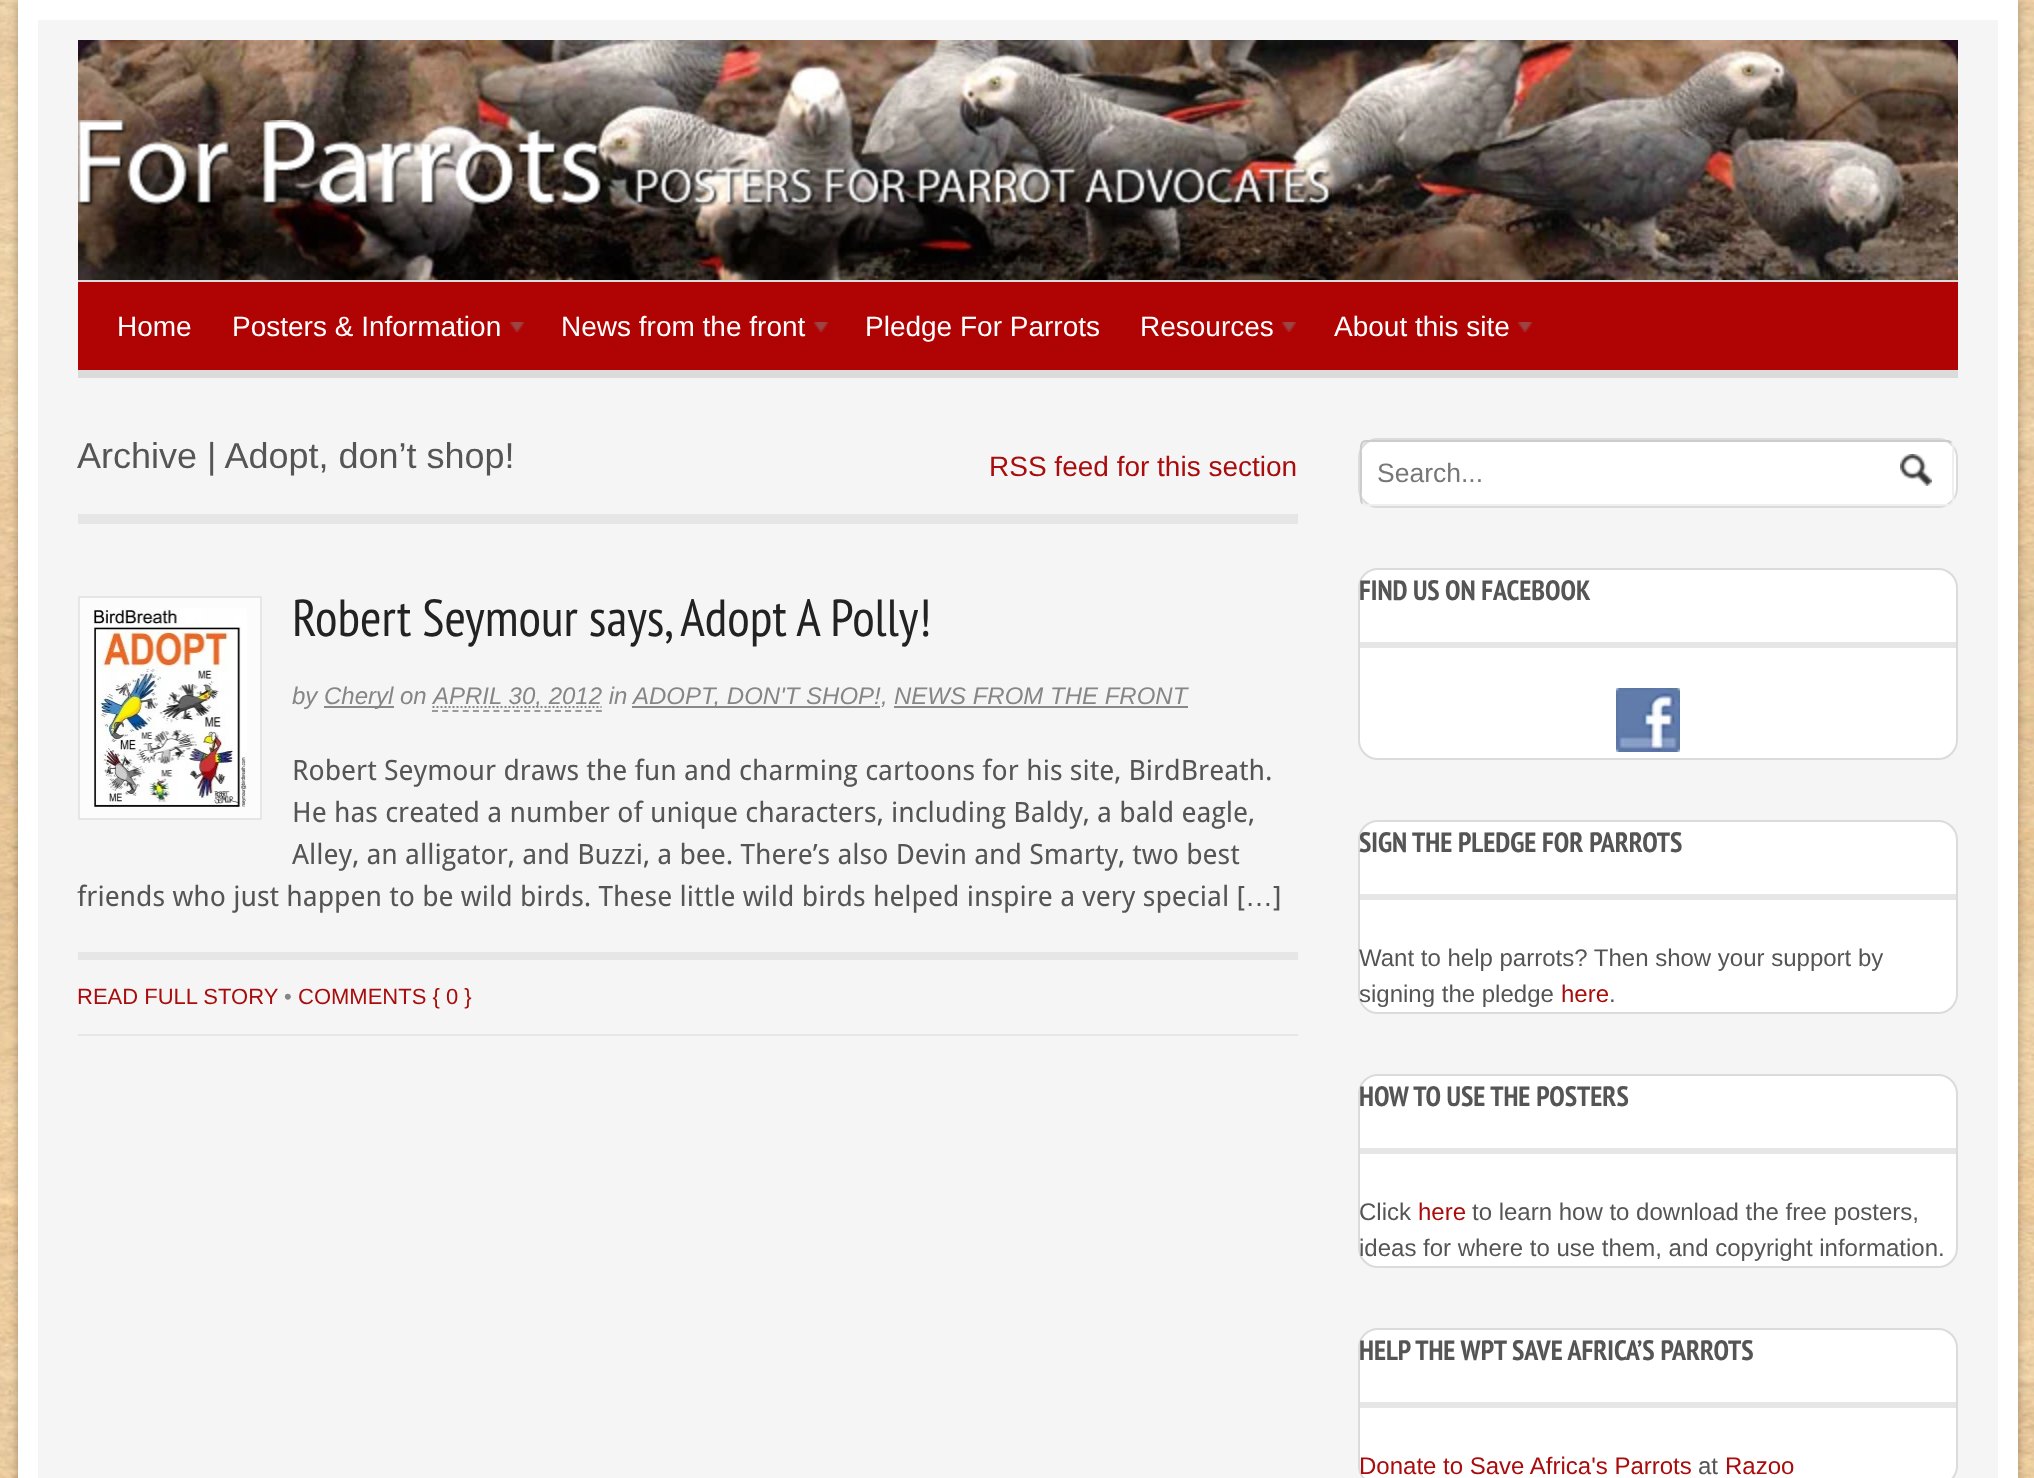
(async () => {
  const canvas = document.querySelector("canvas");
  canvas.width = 2034;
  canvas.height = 1478;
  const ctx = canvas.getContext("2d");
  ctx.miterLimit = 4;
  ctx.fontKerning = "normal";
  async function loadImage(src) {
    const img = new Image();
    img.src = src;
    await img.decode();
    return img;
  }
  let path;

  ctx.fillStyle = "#ffffff";
  ctx.fillRect(0, 0, 2034, 1478);
  ctx.drawImage(await loadImage("img/1.png"), 0, 0, 2034, 1478);
  ctx.fillStyle = "rgba(0, 0, 0, 0.3)";
  ctx.filter = "blur(5px)";
  ctx.beginPath();
  ctx.rect(18, 2, 2000, 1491);
  ctx.fill();
  ctx.filter = "none";
  ctx.fillStyle = "#f5f5f5";
  ctx.beginPath();
  ctx.rect(28, 10, 1980, 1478);
  ctx.fill();
  ctx.strokeStyle = "#ffffff";
  ctx.lineWidth = 20;
  ctx.stroke();
  ctx.drawImage(await loadImage("img/2.png"), 78, 40, 1880, 240);
  ctx.drawImage(await loadImage("img/3.png"), 78, 120, 1254, 88);
  for (const [x, y, w, h, color] of [
    [78, 282, 1880, 88, "#b00303"],
    [78, 280, 1880, 2, "#dbdbdb"],
    [78, 370, 1880, 8, "#dbdbdb"],
  ]) {
    ctx.fillStyle = color;
    ctx.fillRect(x, y, w, h);
  }
  ctx.drawImage(await loadImage("img/4.png"), 510, 322, 14, 10);
  ctx.drawImage(await loadImage("img/4.png"), 814, 322, 14, 10);
  ctx.drawImage(await loadImage("img/4.png"), 1282, 322, 14, 10);
  ctx.drawImage(await loadImage("img/4.png"), 1518, 322, 14, 10);
  ctx.fillStyle = "#e6e6e6";
  ctx.fillRect(78, 514, 1220, 10);
  ctx.fillStyle = "#fcfcfc";
  ctx.beginPath();
  ctx.rect(79, 597, 182, 222);
  ctx.fill();
  ctx.strokeStyle = "#e6e6e6";
  ctx.lineWidth = 2;
  ctx.stroke();
  ctx.drawImage(await loadImage("img/5.png"), 94, 608, 153, 200);
  ctx.fillStyle = "#888888";
  ctx.fillRect(324, 706, 70, 2);
  path = new Path2D("M432 711H602");
  ctx.strokeStyle = "#999999";
  ctx.setLineDash([6, 4.24]);
  ctx.stroke(path);
  path = new Path2D("M432.5 707H601.5");
  ctx.strokeStyle = "#868686";
  ctx.setLineDash([2, 2]);
  ctx.stroke(path);
  for (const [x, y, w, h, color] of [
    [632, 706, 248, 2, "#888888"],
    [894, 706, 294, 2, "#888888"],
    [78, 952, 1220, 8, "#e6e6e6"],
    [78, 1034, 1220, 2, "#e6e6e6"],
  ]) {
    ctx.fillStyle = color;
    ctx.fillRect(x, y, w, h);
  }
  ctx.fillStyle = "#ffffff";
  ctx.beginPath();
  ctx.roundRect(1359, 439, 598, 68, 19);
  ctx.fill();
  ctx.strokeStyle = "#dbdbdb";
  ctx.setLineDash([]);
  ctx.stroke();
  path = new Path2D("M1951.5 442.5C1954.5 445.5 1953 452.5 1953 455V491C1953 494.5 1955 505 1948 505H1365.5L1362.5 503.5");
  ctx.strokeStyle = "#efefef";
  ctx.stroke(path);
  path = new Path2D("M1362.5 503.5C1359.5 500.5 1361 493.5 1361 491V455C1361 451.5 1359 441 1366 441H1948.5L1951.5 442.5");
  ctx.strokeStyle = "#cccccc";
  ctx.stroke(path);
  ctx.drawImage(await loadImage("img/6.png"), 1900, 454, 32, 32);
  ctx.beginPath();
  ctx.roundRect(1359, 569, 598, 190, 19);
  ctx.fill();
  ctx.strokeStyle = "#dbdbdb";
  ctx.stroke();
  ctx.fillStyle = "#e6e6e6";
  ctx.fillRect(1360, 642, 596, 6);
  ctx.drawImage(await loadImage("img/7.png"), 1616, 688, 64, 64);
  ctx.fillStyle = "#ffffff";
  ctx.beginPath();
  ctx.roundRect(1359, 821, 598, 192, 19);
  ctx.fill();
  ctx.stroke();
  ctx.fillStyle = "#e6e6e6";
  ctx.fillRect(1360, 894, 596, 6);
  ctx.fillStyle = "#ffffff";
  ctx.beginPath();
  ctx.roundRect(1359, 1075, 598, 192, 19);
  ctx.fill();
  ctx.stroke();
  ctx.fillStyle = "#e6e6e6";
  ctx.fillRect(1360, 1148, 596, 6);
  ctx.fillStyle = "#ffffff";
  ctx.beginPath();
  ctx.roundRect(1359, 1329, 598, 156, 19);
  ctx.fill();
  ctx.stroke();
  ctx.fillStyle = "#e6e6e6";
  ctx.fillRect(1360, 1402, 596, 6);
  ctx.font = "28px Liberation Sans";
  ctx.fillStyle = "#ffffff";
  for (const [text, x, y] of [
    ["Home", 117, 336],
    ["Posters & Information", 232, 336],
    ["News from the front", 561, 336],
    ["Pledge For Parrots", 865, 336],
    ["Resources", 1140, 336],
    ["About this site", 1334, 336],
  ]) {
    ctx.fillText(text, x, y);
  }
  ctx.font = "36px Liberation Sans";
  ctx.fillStyle = "#555555";
  ctx.fillText("Archive | Adopt, don’t shop!", 77, 468);
  ctx.font = "28px Liberation Sans";
  ctx.fillStyle = "#a80c0c";
  ctx.fillText("RSS feed for this section", 989, 476);
  ctx.font = "52px PT Sans Narrow";
  ctx.fillStyle = "#222222";
  ctx.fillText("Robert Seymour says, Adopt A Polly!", 292, 636);
  ctx.font = "italic 24px Liberation Sans";
  ctx.fillStyle = "#868686";
  for (const [text, x, y] of [
    ["by", 292, 704],
    ["Cheryl", 324, 704],
    ["on", 400, 704],
    ["APRIL 30, 2012 in", 433, 704],
    ["ADOPT, DON'T SHOP!", 633, 704],
    [",", 881, 704],
    ["NEWS FROM THE FRONT", 894, 704],
  ]) {
    ctx.fillText(text, x, y);
  }
  ctx.font = "28px Droid Sans";
  ctx.fillStyle = "#555555";
  for (const [text, x, y] of [
    ["Robert Seymour draws the fun and charming cartoons for his site, BirdBreath.", 292, 780],
    ["He has created a number of unique characters, including Baldy, a bald eagle,", 292, 822],
    ["Alley, an alligator, and Buzzi, a bee. There’s also Devin and Smarty, two best", 292, 864],
    ["friends who just happen to be wild birds. These little wild birds helped inspire a very special [", 77, 906],
  ]) {
    ctx.fillText(text, x, y);
  }
  ctx.font = "28px Liberation Sans";
  ctx.fillText("…", 1245, 906);
  ctx.font = "28px Droid Sans";
  ctx.fillText("]", 1273, 906);
  ctx.font = "22px Liberation Sans";
  ctx.fillStyle = "#a80c0c";
  ctx.fillText("READ FULL STORY", 77, 1004);
  ctx.fillStyle = "#868686";
  ctx.fillText("•", 284, 1004);
  ctx.fillStyle = "#a80c0c";
  ctx.fillText("COMMENTS { 0 }", 298, 1004);
  ctx.font = "26.5px Liberation Sans";
  ctx.fillStyle = "#777777";
  ctx.fillText("Search...", 1377, 482);
  ctx.font = "bold 28px PT Sans Narrow";
  ctx.fillStyle = "#555555";
  ctx.fillText("FIND US ON FACEBOOK", 1359, 600);
  ctx.fillText("SIGN THE PLEDGE FOR PARROTS", 1359, 852);
  ctx.font = "24px Liberation Sans";
  ctx.fillText("Want to help parrots? Then show your support by", 1359, 966);
  ctx.fillText("signing the pledge", 1359, 1002);
  ctx.fillStyle = "#a80c0c";
  ctx.fillText("here", 1561, 1002);
  ctx.fillStyle = "#555555";
  ctx.fillText(".", 1609, 1002);
  ctx.font = "bold 28px PT Sans Narrow";
  ctx.fillText("HOW TO USE THE POSTERS", 1359, 1106);
  ctx.font = "24px Liberation Sans";
  ctx.fillText("Click", 1359, 1220);
  ctx.fillStyle = "#a80c0c";
  ctx.fillText("here", 1418, 1220);
  ctx.fillStyle = "#555555";
  ctx.fillText("to learn how to download the free posters,", 1472, 1220);
  ctx.fillText("ideas for where to use them, and copyright information.", 1359, 1256);
  ctx.font = "bold 28px PT Sans Narrow";
  ctx.fillText("HELP THE WPT SAVE AFRICA’S PARROTS", 1359, 1360);
  ctx.font = "24px Liberation Sans";
  ctx.fillStyle = "#a80c0c";
  ctx.fillText("Donate to Save Africa's Parrots", 1359, 1474);
  ctx.fillStyle = "#555555";
  ctx.fillText("at", 1698, 1474);
  ctx.fillStyle = "#a80c0c";
  ctx.fillText("Razoo", 1725, 1474);
})();
